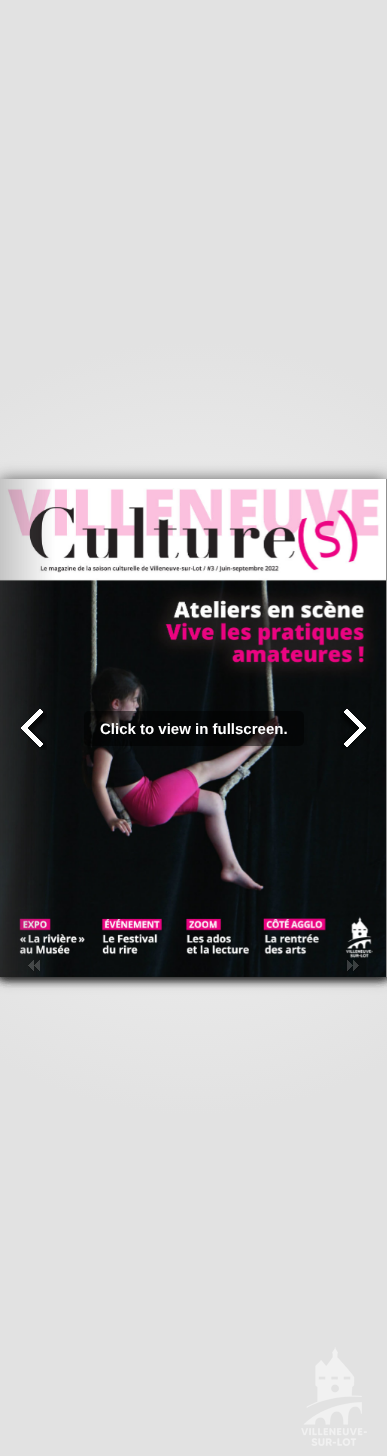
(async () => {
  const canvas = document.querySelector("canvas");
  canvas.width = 387;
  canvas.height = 1456;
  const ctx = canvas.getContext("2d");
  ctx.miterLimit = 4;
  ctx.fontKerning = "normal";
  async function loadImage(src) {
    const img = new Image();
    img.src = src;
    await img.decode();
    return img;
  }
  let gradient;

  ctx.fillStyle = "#ffffff";
  ctx.fillRect(0, 0, 387, 1456);
  gradient = ctx.createRadialGradient(194, 728, 0, 194, 728, 387);
  gradient.addColorStop(0, "#f4f4f4");
  gradient.addColorStop(1, "#e2e2e2");
  ctx.fillStyle = gradient;
  ctx.fillRect(0, 0, 387, 1456);
  ctx.fillStyle = "rgba(40, 40, 40, 0.7)";
  ctx.filter = "blur(7.5px)";
  ctx.beginPath();
  ctx.rect(0, 479, 387, 498);
  ctx.fill();
  ctx.filter = "none";
  ctx.save();
  ctx.beginPath();
  ctx.rect(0, 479, 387, 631);
  ctx.clip();
  ctx.fillStyle = "rgba(40, 40, 40, 0.5)";
  ctx.filter = "blur(5px)";
  ctx.beginPath();
  ctx.rect(0, 479, 387, 498);
  ctx.fill();
  ctx.filter = "none";
  ctx.filter = "blur(5px)";
  ctx.beginPath();
  ctx.rect(0, 479, 387, 498);
  ctx.fill();
  ctx.filter = "none";
  ctx.filter = "blur(5px)";
  ctx.beginPath();
  ctx.rect(0, 479, 387, 498);
  ctx.fill();
  ctx.filter = "none";
  ctx.filter = "blur(5px)";
  ctx.beginPath();
  ctx.rect(0, 479, 387, 498);
  ctx.fill();
  ctx.filter = "none";
  ctx.filter = "blur(5px)";
  ctx.beginPath();
  ctx.rect(0, 479, 387, 498);
  ctx.fill();
  ctx.filter = "none";
  ctx.filter = "blur(5px)";
  ctx.beginPath();
  ctx.rect(0, 479, 387, 498);
  ctx.fill();
  ctx.filter = "none";
  ctx.restore();
  ctx.drawImage(await loadImage("img/1.png"), 0, 479, 386, 498);
  for (const [x, y, w, h, color] of [
    [386, 479, 1, 50, "#8f8f8f"],
    [386, 529, 1, 398, "#909090"],
    [386, 927, 1, 50, "#8f8f8f"],
  ]) {
    ctx.fillStyle = color;
    ctx.fillRect(x, y, w, h);
  }
  ctx.drawImage(await loadImage("img/2.png"), 21, 709, 26, 41);
  ctx.fillStyle = "rgba(0, 0, 0, 0.5)";
  ctx.beginPath();
  ctx.roundRect(84, 711, 220, 35, 5);
  ctx.fill();
  ctx.drawImage(await loadImage("img/3.png"), 340, 709, 26, 41);
  ctx.drawImage(await loadImage("img/4.png"), 28, 960, 12, 11);
  ctx.drawImage(await loadImage("img/5.png"), 347, 960, 12, 11);
  ctx.drawImage(await loadImage("img/6.png"), 301, 1347, 66, 99);
  ctx.font = "bold 15px Liberation Sans";
  ctx.fillStyle = "#ffffff";
  ctx.fillText("Click to view in fullscreen.", 100, 734);
})();
